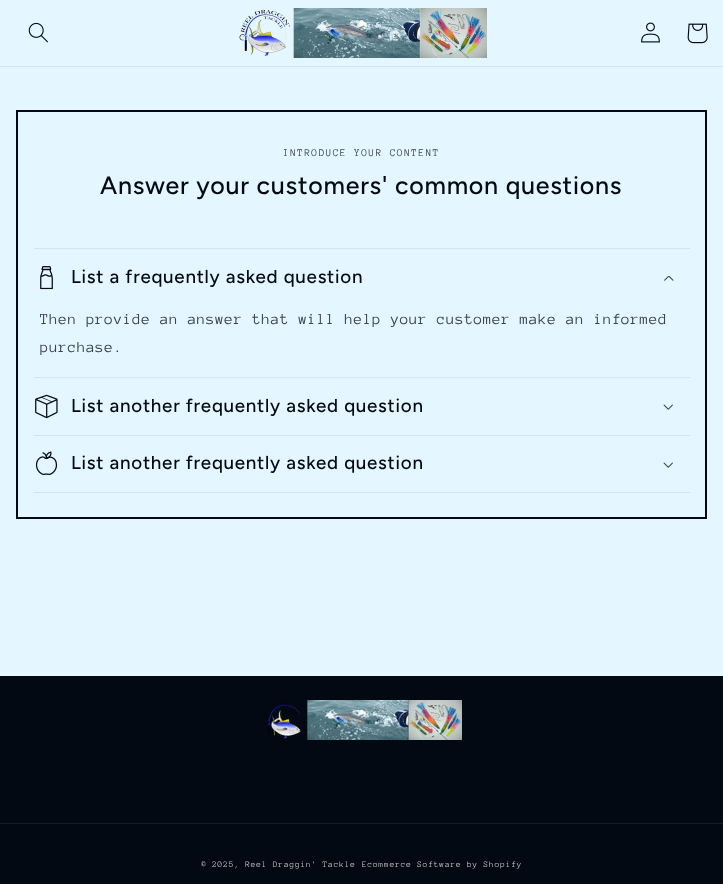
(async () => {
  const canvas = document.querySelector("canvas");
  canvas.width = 723;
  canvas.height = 884;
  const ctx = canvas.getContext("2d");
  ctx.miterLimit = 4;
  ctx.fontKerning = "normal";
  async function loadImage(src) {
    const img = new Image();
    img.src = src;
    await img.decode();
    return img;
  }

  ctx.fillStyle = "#e4f6ff";
  ctx.fillRect(0, 0, 723, 884);
  ctx.fillStyle = "#d2e3ec";
  ctx.fillRect(0, 66, 723, 1);
  ctx.drawImage(await loadImage("img/1.png"), 28, 22, 20, 21);
  ctx.drawImage(await loadImage("img/2.png"), 239, 8, 248, 50);
  ctx.drawImage(await loadImage("img/3.png"), 641, 22, 19, 21);
  ctx.drawImage(await loadImage("img/4.png"), 687, 23, 21, 21);
  ctx.strokeStyle = "#020912";
  ctx.lineWidth = 2;
  ctx.strokeRect(17, 111, 689, 407);
  ctx.fillRect(34, 248, 656, 1);
  ctx.fillRect(34, 377, 656, 1);
  ctx.drawImage(await loadImage("img/5.png"), 40, 266, 13, 24);
  ctx.drawImage(await loadImage("img/6.png"), 664, 276, 10, 5);
  ctx.fillRect(34, 435, 656, 1);
  ctx.drawImage(await loadImage("img/7.png"), 35, 394, 23, 25);
  ctx.drawImage(await loadImage("img/8.png"), 663, 404, 10, 6);
  ctx.fillRect(34, 492, 656, 1);
  ctx.drawImage(await loadImage("img/9.png"), 35, 451, 23, 24);
  ctx.drawImage(await loadImage("img/8.png"), 663, 462, 10, 6);
  ctx.fillStyle = "#020912";
  ctx.fillRect(0, 676, 723, 208);
  ctx.drawImage(await loadImage("img/10.png"), 264, 700, 198, 40);
  ctx.fillStyle = "#161c25";
  ctx.fillRect(0, 823, 723, 1);
  ctx.letterSpacing = "1.4px";
  ctx.font = "10.5px Anonymous Pro";
  ctx.fillStyle = "#3b444d";
  ctx.fillText("INTRODUCE YOUR CONTENT", 283, 156);
  ctx.letterSpacing = "0.75px";
  ctx.font = "500 25px Figtree";
  ctx.fillStyle = "#020912";
  ctx.fillText("Answer your customers' common questions", 100, 194);
  ctx.font = "500 18.75px Figtree";
  ctx.fillText("List a frequently asked question", 71, 283);
  ctx.letterSpacing = "0.63px";
  ctx.font = "15.75px Anonymous Pro";
  ctx.fillStyle = "#3b444d";
  ctx.fillText("Then provide an answer that will help your customer make an informed", 40, 324);
  ctx.fillText("purchase.", 40, 352);
  ctx.letterSpacing = "0.75px";
  ctx.font = "500 18.75px Figtree";
  ctx.fillStyle = "#020912";
  ctx.fillText("List another frequently asked question", 71, 412);
  ctx.fillText("List another frequently asked question", 71, 469);
  ctx.font = "8.75px Anonymous Pro";
  ctx.fillStyle = "#bebfc2";
  ctx.fillText("© 2025, Reel Draggin' Tackle", 201, 867);
  ctx.fillText("Ecommerce Software by Shopify", 362, 867);
})();
